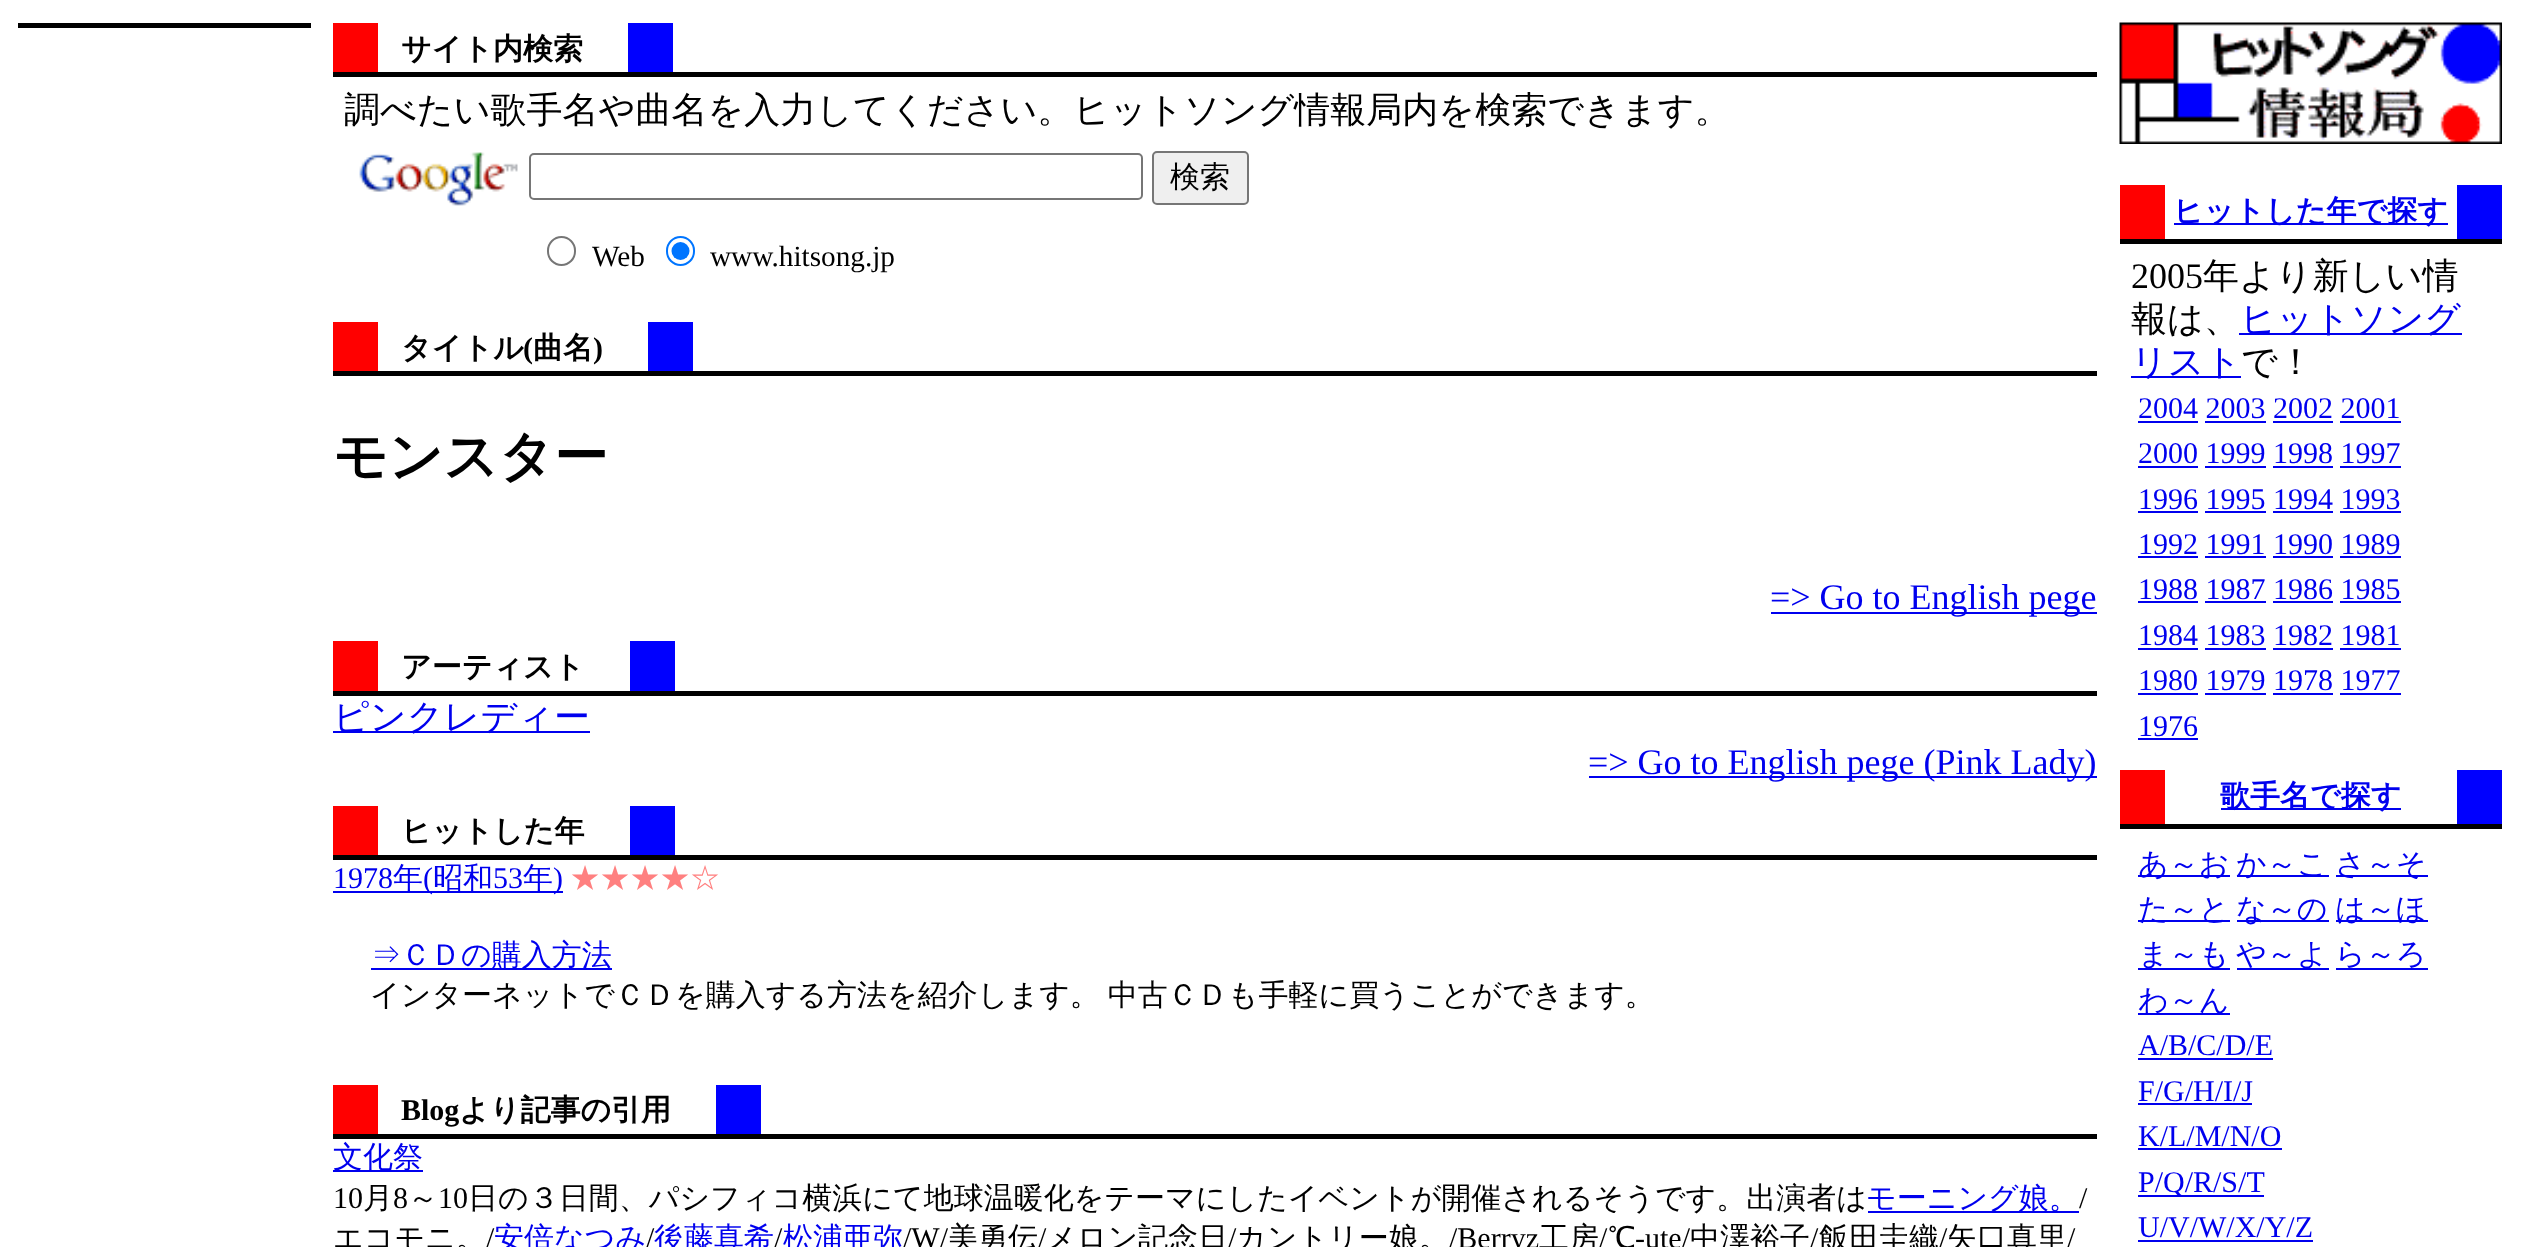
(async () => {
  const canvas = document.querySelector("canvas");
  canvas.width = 2541;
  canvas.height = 1247;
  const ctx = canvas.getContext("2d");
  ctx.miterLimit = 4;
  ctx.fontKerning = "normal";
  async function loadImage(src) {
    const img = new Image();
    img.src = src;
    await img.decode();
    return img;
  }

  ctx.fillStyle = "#ffffff";
  ctx.fillRect(0, 0, 2541, 1247);
  for (const [x, y, w, h, color] of [
    [18, 23, 293, 5, "#000000"],
    [333, 72, 1764, 5, "#000000"],
    [628, 23, 45, 49, "#0000ff"],
    [333, 23, 45, 49, "#ff0000"],
  ]) {
    ctx.fillStyle = color;
    ctx.fillRect(x, y, w, h);
  }
  ctx.drawImage(await loadImage("img/1.png"), 359, 152, 159, 54);
  ctx.beginPath();
  ctx.roundRect(530, 154, 612, 45, 4);
  ctx.strokeStyle = "#767676";
  ctx.lineWidth = 2;
  ctx.stroke();
  ctx.fillStyle = "#efefef";
  ctx.beginPath();
  ctx.roundRect(1153, 152, 95, 52, 4);
  ctx.fill();
  ctx.stroke();
  ctx.beginPath();
  ctx.roundRect(548, 237, 27, 28, 13.5);
  ctx.stroke();
  ctx.beginPath();
  ctx.roundRect(667, 237, 27, 28, 13.5);
  ctx.strokeStyle = "#0075ff";
  ctx.stroke();
  ctx.fillStyle = "#0075ff";
  ctx.beginPath();
  ctx.arc(680.5, 251, 9, 0, Math.PI * 2);
  ctx.fill();
  for (const [x, y, w, h, color] of [
    [333, 371, 1764, 5, "#000000"],
    [648, 322, 45, 49, "#0000ff"],
    [333, 322, 45, 49, "#ff0000"],
    [1771, 612, 326, 2, "#0000ee"],
    [333, 691, 1764, 5, "#000000"],
    [630, 641, 45, 50, "#0000ff"],
    [333, 641, 45, 50, "#ff0000"],
    [333, 731, 257, 2, "#0000ee"],
    [1589, 776, 508, 2, "#0000ee"],
    [333, 855, 1764, 5, "#000000"],
    [630, 806, 45, 49, "#0000ff"],
    [333, 806, 45, 49, "#ff0000"],
    [333, 891, 230, 2, "#0000ee"],
    [371, 968, 241, 2, "#0000ee"],
    [333, 1134, 1764, 5, "#000000"],
    [716, 1085, 45, 49, "#0000ff"],
    [333, 1085, 45, 49, "#ff0000"],
    [333, 1170, 90, 2, "#0000ee"],
    [1868, 1211, 211, 2, "#0000ee"],
  ]) {
    ctx.fillStyle = color;
    ctx.fillRect(x, y, w, h);
  }
  ctx.drawImage(await loadImage("img/2.png"), 2119, 22, 383, 122);
  for (const [x, y, w, h, color] of [
    [2457, 185, 45, 54, "#0000ff"],
    [2120, 185, 45, 54, "#ff0000"],
    [2174, 223, 274, 2, "#0000ee"],
    [2120, 239, 382, 5, "#000000"],
    [2239, 333, 223, 2, "#0000ee"],
    [2131, 376, 110, 2, "#0000ee"],
    [2138, 421, 60, 2, "#0000ee"],
    [2205, 421, 61, 2, "#0000ee"],
    [2273, 421, 60, 2, "#0000ee"],
    [2340, 421, 61, 2, "#0000ee"],
    [2138, 466, 60, 2, "#0000ee"],
    [2205, 466, 61, 2, "#0000ee"],
    [2273, 466, 60, 2, "#0000ee"],
    [2340, 466, 61, 2, "#0000ee"],
    [2138, 511, 60, 2, "#0000ee"],
    [2205, 511, 61, 2, "#0000ee"],
    [2273, 511, 60, 2, "#0000ee"],
    [2340, 511, 61, 2, "#0000ee"],
    [2138, 556, 60, 2, "#0000ee"],
    [2205, 556, 61, 2, "#0000ee"],
    [2273, 556, 60, 2, "#0000ee"],
    [2340, 556, 61, 2, "#0000ee"],
    [2138, 601, 60, 2, "#0000ee"],
    [2205, 601, 61, 2, "#0000ee"],
    [2273, 601, 60, 2, "#0000ee"],
    [2340, 601, 61, 2, "#0000ee"],
    [2138, 648, 60, 2, "#0000ee"],
    [2205, 648, 61, 2, "#0000ee"],
    [2273, 648, 60, 2, "#0000ee"],
    [2340, 648, 61, 2, "#0000ee"],
    [2138, 693, 60, 2, "#0000ee"],
    [2205, 693, 61, 2, "#0000ee"],
    [2273, 693, 60, 2, "#0000ee"],
    [2340, 693, 61, 2, "#0000ee"],
    [2138, 738, 60, 2, "#0000ee"],
    [2457, 770, 45, 54, "#0000ff"],
    [2120, 770, 45, 54, "#ff0000"],
    [2221, 808, 180, 2, "#0000ee"],
    [2120, 824, 382, 5, "#000000"],
    [2138, 875, 92, 2, "#0000ee"],
    [2237, 875, 92, 2, "#0000ee"],
    [2336, 875, 92, 2, "#0000ee"],
    [2138, 920, 92, 2, "#0000ee"],
    [2237, 920, 92, 2, "#0000ee"],
    [2336, 920, 92, 2, "#0000ee"],
    [2138, 968, 92, 2, "#0000ee"],
    [2237, 968, 92, 2, "#0000ee"],
    [2336, 968, 92, 2, "#0000ee"],
    [2138, 1013, 92, 2, "#0000ee"],
    [2138, 1058, 135, 2, "#0000ee"],
    [2138, 1103, 114, 2, "#0000ee"],
    [2138, 1148, 144, 2, "#0000ee"],
    [2138, 1195, 126, 2, "#0000ee"],
    [2138, 1240, 175, 2, "#0000ee"],
  ]) {
    ctx.fillStyle = color;
    ctx.fillRect(x, y, w, h);
  }
  ctx.font = "bold 30px WenQuanYi Zen Hei";
  ctx.fillStyle = "#000000";
  ctx.fillText("サイト内検索", 401, 59);
  ctx.font = "500 36px WenQuanYi Zen Hei";
  ctx.fillText("調べたい歌手名や曲名を入力してください。ヒットソング情報局内を検索できます。", 344, 122);
  ctx.font = "500 30px WenQuanYi Zen Hei";
  ctx.fillText("検索", 1170, 187);
  ctx.font = "29.25px Liberation Serif";
  ctx.fillText("Web", 592, 266);
  ctx.fillText("www.hitsong.jp", 710, 266);
  ctx.font = "bold 30px WenQuanYi Zen Hei";
  ctx.fillText("タイトル", 401, 358);
  ctx.font = "bold 30px Liberation Serif";
  ctx.fillText("(", 523, 358);
  ctx.font = "bold 30px WenQuanYi Zen Hei";
  ctx.fillText("曲名", 533, 358);
  ctx.font = "bold 30px Liberation Serif";
  ctx.fillText(")", 593, 358);
  ctx.font = "bold 54px WenQuanYi Zen Hei";
  ctx.fillText("モンスター", 333, 475);
  ctx.font = "36px Liberation Serif";
  ctx.fillStyle = "#0000ee";
  ctx.fillText("=> Go to English pege", 1770, 609);
  ctx.font = "bold 30px WenQuanYi Zen Hei";
  ctx.fillStyle = "#000000";
  ctx.fillText("アーティスト", 401, 677);
  ctx.font = "500 36px WenQuanYi Zen Hei";
  ctx.fillStyle = "#0000ee";
  ctx.fillText("ピンクレディー", 333, 729);
  ctx.font = "36px Liberation Serif";
  ctx.fillText("=> Go to English pege (Pink Lady)", 1588, 774);
  ctx.font = "bold 30px WenQuanYi Zen Hei";
  ctx.fillStyle = "#000000";
  ctx.fillText("ヒットした年", 401, 841);
  ctx.font = "30px Liberation Serif";
  ctx.fillStyle = "#0000ee";
  ctx.fillText("1978", 333, 888);
  ctx.font = "500 30px WenQuanYi Zen Hei";
  ctx.fillText("年", 393, 888);
  ctx.font = "30px Liberation Serif";
  ctx.fillText("(", 423, 888);
  ctx.font = "500 30px WenQuanYi Zen Hei";
  ctx.fillText("昭和", 433, 888);
  ctx.font = "30px Liberation Serif";
  ctx.fillText("53", 493, 888);
  ctx.font = "500 30px WenQuanYi Zen Hei";
  ctx.fillText("年", 523, 888);
  ctx.font = "30px Liberation Serif";
  ctx.fillText(")", 553, 888);
  ctx.font = "500 30px WenQuanYi Zen Hei";
  ctx.fillStyle = "#ff8080";
  ctx.fillText("★★★★☆", 570, 888);
  ctx.fillStyle = "#0000ee";
  ctx.fillText("⇒ＣＤの購入方法", 371, 965);
  ctx.wordSpacing = "-1px";
  ctx.fillStyle = "#000000";
  ctx.fillText("インターネットでＣＤを購入する方法を紹介します。 中古ＣＤも手軽に買うことができます。", 370, 1005);
  ctx.wordSpacing = "0px";
  ctx.font = "bold 30px Liberation Serif";
  ctx.fillText("Blog", 401, 1120);
  ctx.font = "bold 30px WenQuanYi Zen Hei";
  ctx.fillText("より記事の引用", 459, 1120);
  ctx.font = "500 30px WenQuanYi Zen Hei";
  ctx.fillStyle = "#0000ee";
  ctx.fillText("文化祭", 333, 1167);
  ctx.font = "30px Liberation Serif";
  ctx.fillStyle = "#000000";
  ctx.fillText("10", 333, 1208);
  ctx.font = "500 30px WenQuanYi Zen Hei";
  ctx.fillText("月", 363, 1208);
  ctx.font = "30px Liberation Serif";
  ctx.fillText("8", 393, 1208);
  ctx.font = "500 30px WenQuanYi Zen Hei";
  ctx.fillText("～", 408, 1208);
  ctx.font = "30px Liberation Serif";
  ctx.fillText("10", 438, 1208);
  ctx.font = "500 30px WenQuanYi Zen Hei";
  ctx.fillText("日の３日間、パシフィコ横浜にて地球温暖化をテーマにしたイベントが開催されるそうです。出演者は", 468, 1208);
  ctx.fillStyle = "#0000ee";
  ctx.fillText("モーニング娘。", 1866, 1208);
  ctx.font = "30px Liberation Serif";
  ctx.fillStyle = "#000000";
  ctx.fillText("/", 2079, 1208);
  ctx.font = "500 30px WenQuanYi Zen Hei";
  ctx.fillText("エコモニ。", 333, 1248);
  ctx.font = "30px Liberation Serif";
  ctx.fillText("/", 486, 1248);
  ctx.font = "500 30px WenQuanYi Zen Hei";
  ctx.fillStyle = "#0000ee";
  ctx.fillText("安倍なつみ", 494, 1248);
  ctx.font = "30px Liberation Serif";
  ctx.fillStyle = "#000000";
  ctx.fillText("/", 646, 1248);
  ctx.font = "500 30px WenQuanYi Zen Hei";
  ctx.fillStyle = "#0000ee";
  ctx.fillText("後藤真希", 654, 1248);
  ctx.font = "30px Liberation Serif";
  ctx.fillStyle = "#000000";
  ctx.fillText("/", 774, 1248);
  ctx.font = "500 30px WenQuanYi Zen Hei";
  ctx.fillStyle = "#0000ee";
  ctx.fillText("松浦亜弥", 783, 1248);
  ctx.font = "30px Liberation Serif";
  ctx.fillStyle = "#000000";
  ctx.fillText("/W/", 903, 1248);
  ctx.font = "500 30px WenQuanYi Zen Hei";
  ctx.fillText("美勇伝", 948, 1248);
  ctx.font = "30px Liberation Serif";
  ctx.fillText("/", 1038, 1248);
  ctx.font = "500 30px WenQuanYi Zen Hei";
  ctx.fillText("メロン記念日", 1046, 1248);
  ctx.font = "30px Liberation Serif";
  ctx.fillText("/", 1228, 1248);
  ctx.font = "500 30px WenQuanYi Zen Hei";
  ctx.fillText("カントリー娘。", 1236, 1248);
  ctx.font = "30px Liberation Serif";
  ctx.fillText("/Berryz", 1449, 1248);
  ctx.font = "500 30px WenQuanYi Zen Hei";
  ctx.fillText("工房", 1539, 1248);
  ctx.font = "30px Liberation Serif";
  ctx.fillText("/", 1599, 1248);
  ctx.font = "500 30px WenQuanYi Zen Hei";
  ctx.fillText("℃", 1608, 1248);
  ctx.font = "30px Liberation Serif";
  ctx.fillText("-ute/", 1635, 1248);
  ctx.font = "500 30px WenQuanYi Zen Hei";
  ctx.fillText("中澤裕子", 1690, 1248);
  ctx.font = "30px Liberation Serif";
  ctx.fillText("/", 1810, 1248);
  ctx.font = "500 30px WenQuanYi Zen Hei";
  ctx.fillText("飯田圭織", 1819, 1248);
  ctx.font = "30px Liberation Serif";
  ctx.fillText("/", 1939, 1248);
  ctx.font = "500 30px WenQuanYi Zen Hei";
  ctx.fillText("矢口真里", 1947, 1248);
  ctx.font = "30px Liberation Serif";
  ctx.fillText("/", 2067, 1248);
  ctx.font = "bold 30px WenQuanYi Zen Hei";
  ctx.fillStyle = "#0000ee";
  ctx.fillText("ヒットした年で探す", 2173, 221);
  ctx.font = "36px Liberation Serif";
  ctx.fillStyle = "#000000";
  ctx.fillText("2005", 2131, 288);
  ctx.font = "500 36px WenQuanYi Zen Hei";
  ctx.fillText("年より新しい情", 2203, 288);
  ctx.fillText("報は、", 2131, 331);
  ctx.fillStyle = "#0000ee";
  ctx.fillText("ヒットソング", 2240, 331);
  ctx.fillText("リスト", 2131, 374);
  ctx.fillStyle = "#000000";
  ctx.fillText("で！", 2241, 374);
  ctx.font = "30px Liberation Serif";
  ctx.fillStyle = "#0000ee";
  for (const [text, x, y] of [
    ["2004 2003 2002 2001", 2138, 418],
    ["2000 1999 1998 1997", 2138, 463],
    ["1996 1995 1994 1993", 2138, 509],
    ["1992 1991 1990 1989", 2138, 554],
    ["1988 1987 1986 1985", 2138, 599],
    ["1984 1983 1982 1981", 2138, 645],
    ["1980 1979 1978 1977", 2138, 690],
    ["1976", 2138, 736],
  ]) {
    ctx.fillText(text, x, y);
  }
  ctx.font = "bold 30px WenQuanYi Zen Hei";
  ctx.fillText("歌手名で探す", 2220, 806);
  ctx.font = "500 30px WenQuanYi Zen Hei";
  for (const [text, x, y] of [
    ["あ～お", 2138, 874],
    ["か～こ", 2236, 874],
    ["さ～そ", 2335, 874],
    ["た～と", 2138, 919],
    ["な～の", 2236, 919],
    ["は～ほ", 2335, 919],
    ["ま～も", 2138, 964],
    ["や～よ", 2236, 964],
    ["ら～ろ", 2335, 964],
    ["わ～ん", 2138, 1010],
  ]) {
    ctx.fillText(text, x, y);
  }
  ctx.font = "30px Liberation Serif";
  for (const [text, x, y] of [
    ["A/B/C/D/E", 2138, 1055],
    ["F/G/H/I/J", 2138, 1101],
    ["K/L/M/N/O", 2138, 1146],
    ["P/Q/R/S/T", 2138, 1192],
    ["U/V/W/X/Y/Z", 2138, 1237],
  ]) {
    ctx.fillText(text, x, y);
  }
})();
